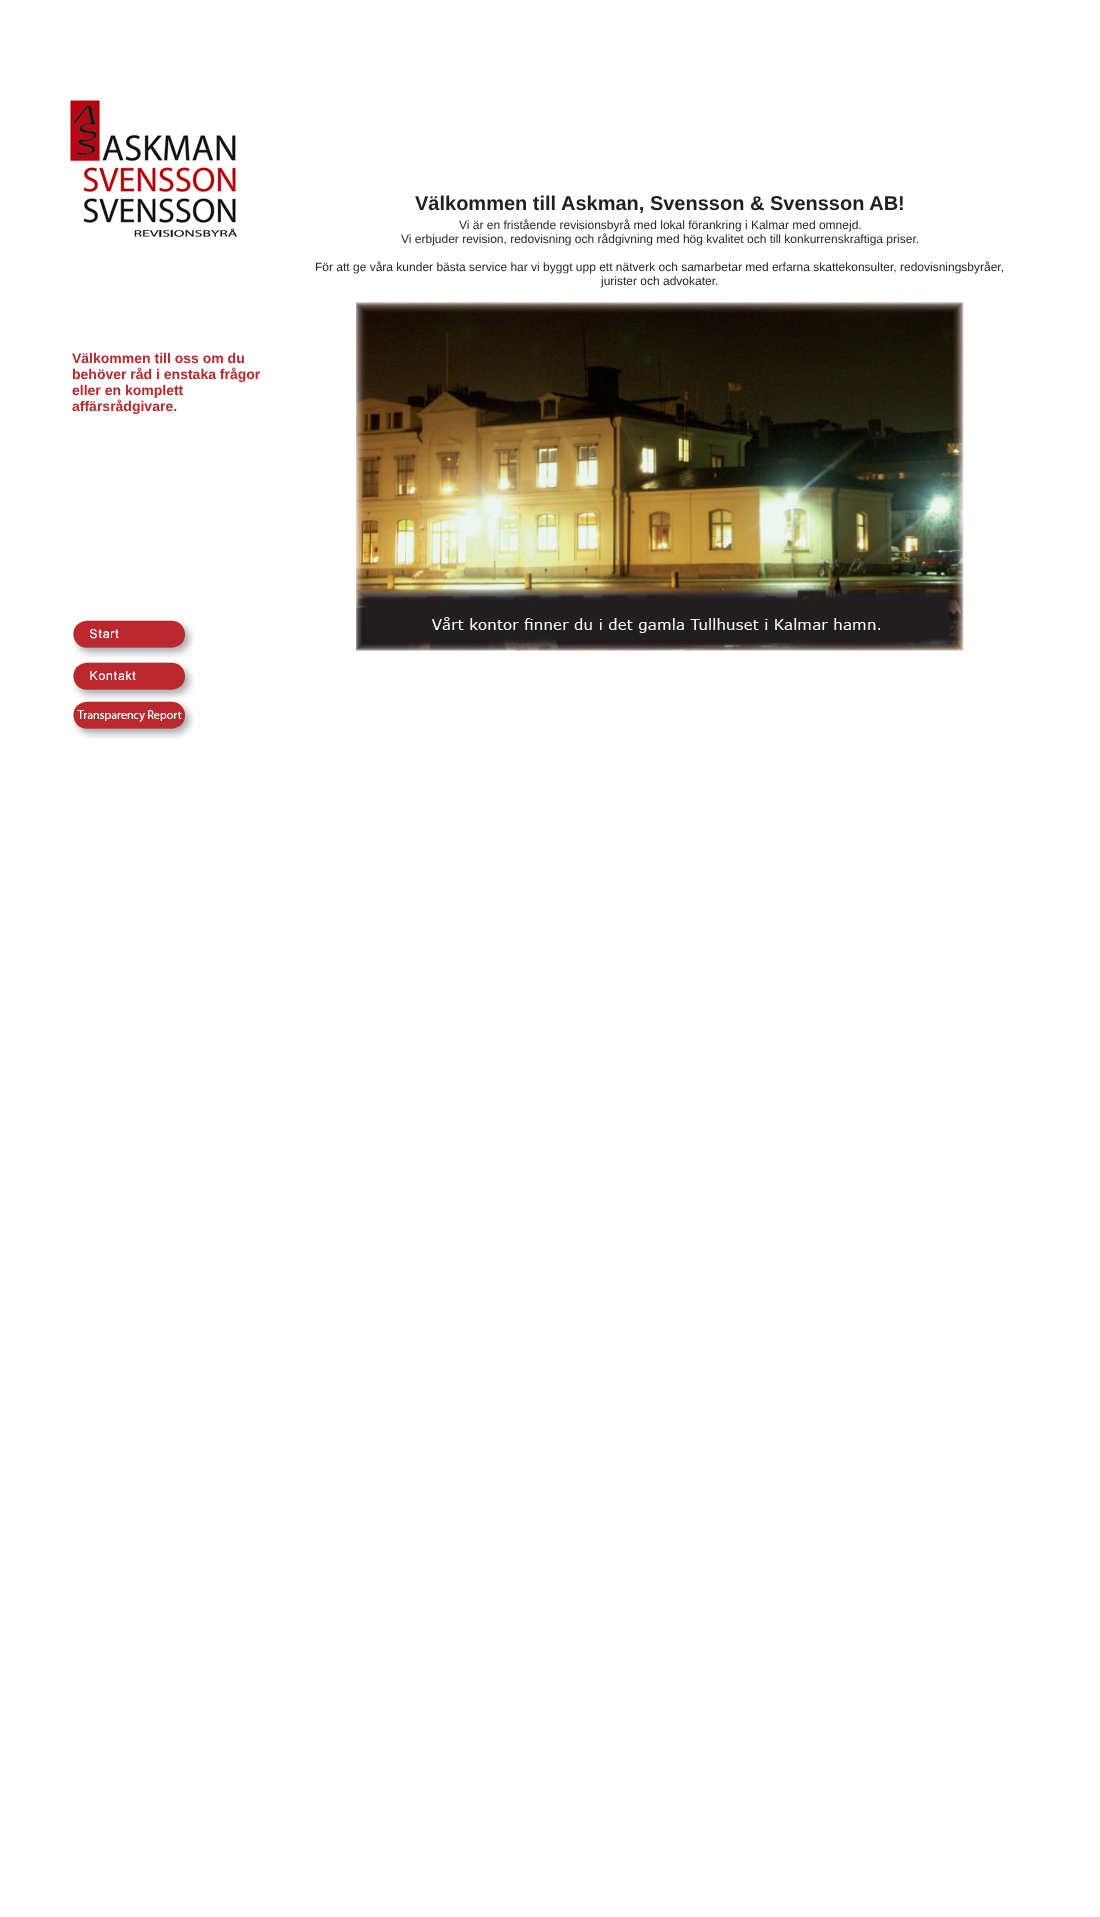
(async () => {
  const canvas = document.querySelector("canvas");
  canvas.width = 1100;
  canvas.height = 1917;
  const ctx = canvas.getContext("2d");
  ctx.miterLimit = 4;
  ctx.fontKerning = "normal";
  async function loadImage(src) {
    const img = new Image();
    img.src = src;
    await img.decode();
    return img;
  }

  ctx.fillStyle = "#ffffff";
  ctx.fillRect(0, 0, 1100, 1917);
  ctx.drawImage(await loadImage("img/1.png"), 356, 302, 608, 349);
  ctx.drawImage(await loadImage("img/2.png"), 70, 100, 167, 138);
  ctx.drawImage(await loadImage("img/3.png"), 72, 620, 123, 38);
  ctx.drawImage(await loadImage("img/4.png"), 72, 662, 123, 38);
  ctx.drawImage(await loadImage("img/5.png"), 72, 701, 123, 38);
  ctx.font = "bold 20px Liberation Sans";
  ctx.fillStyle = "#231f20";
  ctx.fillText("Välkommen till Askman, Svensson & Svensson AB!", 415, 210);
  ctx.font = "12px Liberation Sans";
  for (const [text, x, y] of [
    ["Vi är en fristående revisionsbyrå med lokal förankring i Kalmar med omnejd.", 459, 229],
    ["Vi erbjuder revision, redovisning och rådgivning med hög kvalitet och till konkurrenskraftiga priser.", 401, 243],
    ["För att ge våra kunder bästa service har vi byggt upp ett nätverk och samarbetar med erfarna skattekonsulter, redovisningsbyråer,", 315, 271],
    ["jurister och advokater.", 601, 285],
  ]) {
    ctx.fillText(text, x, y);
  }
  ctx.font = "bold 14px Liberation Sans";
  ctx.fillStyle = "#ba282e";
  for (const [text, x, y] of [
    ["Välkommen till oss om du", 72, 363],
    ["behöver råd i enstaka frågor", 72, 379],
    ["eller en komplett", 72, 395],
    ["affärsrådgivare.", 72, 411],
  ]) {
    ctx.fillText(text, x, y);
  }
})();
